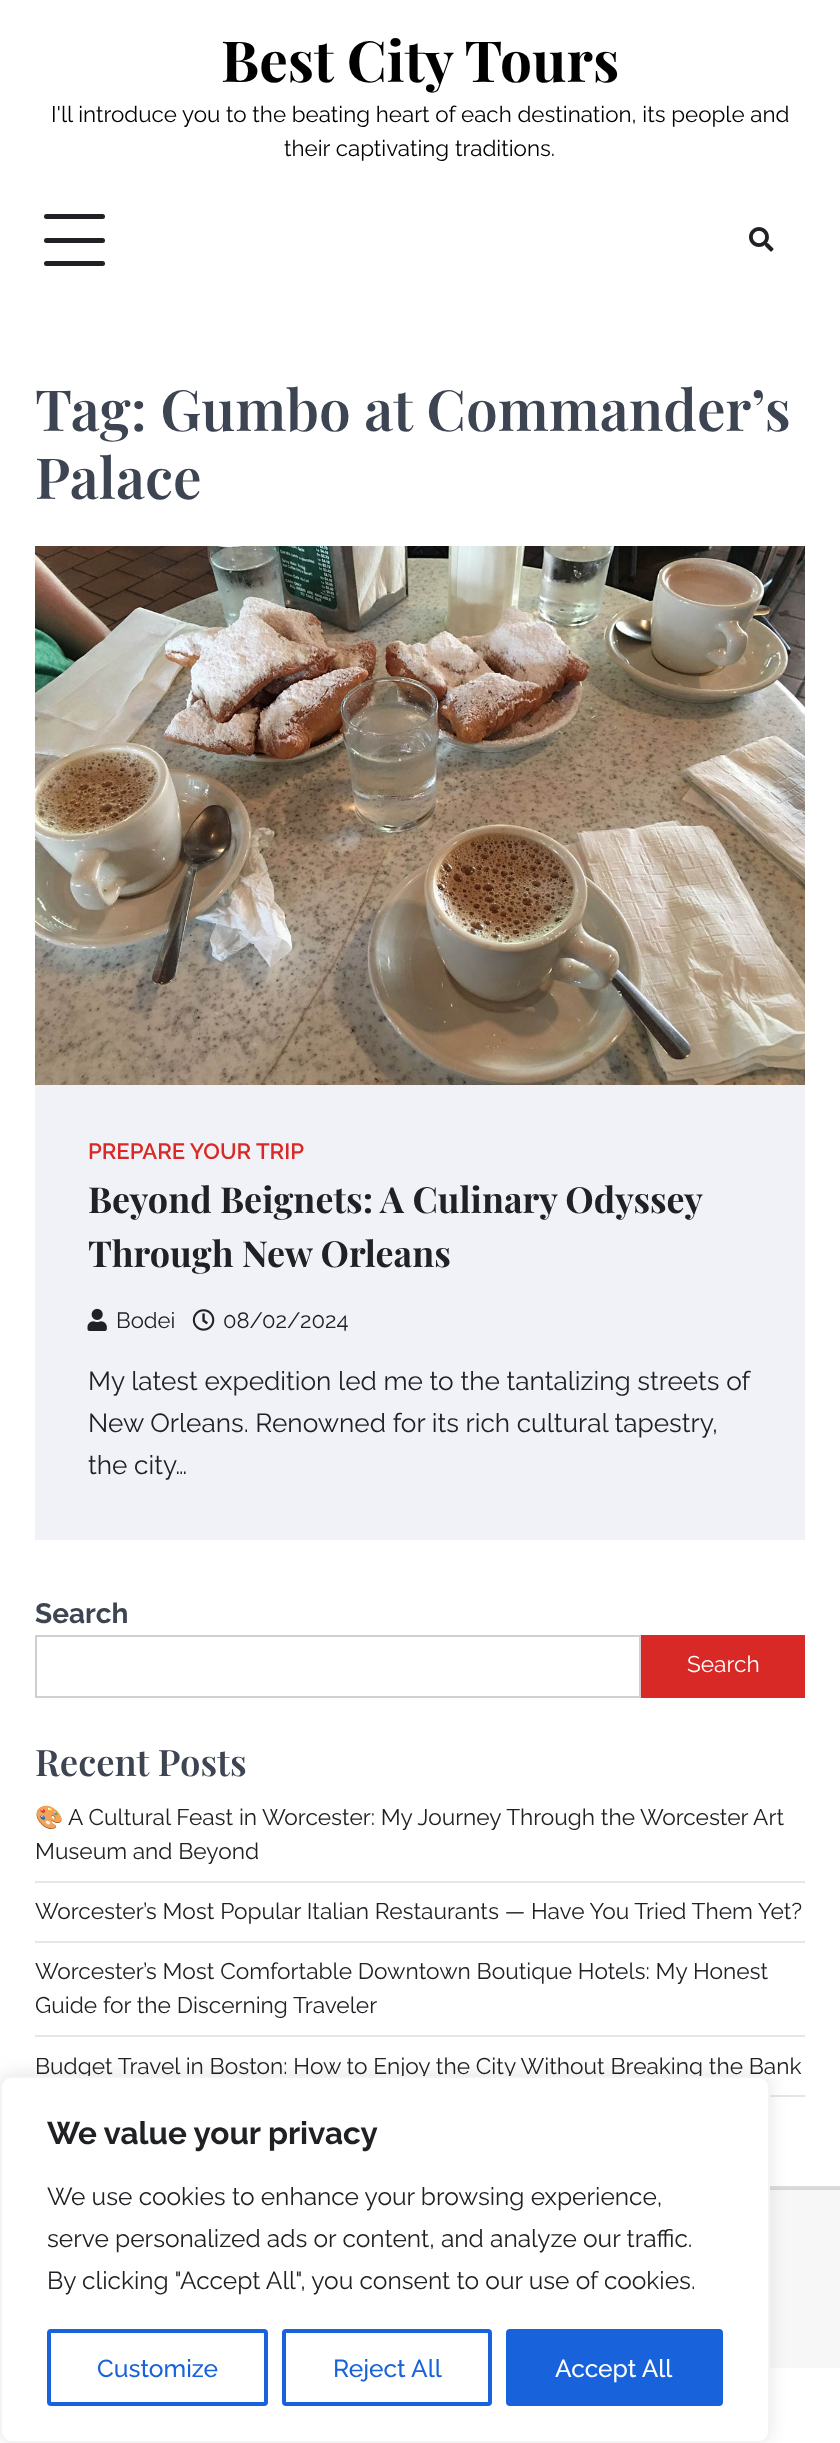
(async () => {
  const canvas = document.querySelector("canvas");
  canvas.width = 840;
  canvas.height = 2443;
  const ctx = canvas.getContext("2d");
  ctx.miterLimit = 4;
  ctx.fontKerning = "normal";
  async function loadImage(src) {
    const img = new Image();
    img.src = src;
    await img.decode();
    return img;
  }

  ctx.fillStyle = "#ffffff";
  ctx.fillRect(0, 0, 840, 2443);
  ctx.fillStyle = "#202124";
  ctx.beginPath();
  ctx.roundRect(44, 214, 61, 5, 2.5);
  ctx.fill();
  ctx.beginPath();
  ctx.roundRect(44, 238, 61, 5, 2.5);
  ctx.fill();
  ctx.beginPath();
  ctx.roundRect(44, 261, 61, 5, 2.5);
  ctx.fill();
  ctx.drawImage(await loadImage("img/1.png"), 749, 227, 25, 25);
  ctx.fillStyle = "#f0f2f7";
  ctx.fillRect(35, 1085, 770, 455);
  ctx.drawImage(await loadImage("img/2.png"), 35, 546, 770, 539);
  ctx.drawImage(await loadImage("img/3.png"), 87, 1308, 20, 23);
  ctx.drawImage(await loadImage("img/4.png"), 192, 1309, 23, 22);
  ctx.strokeStyle = "#d3ced2";
  ctx.lineWidth = 2;
  ctx.strokeRect(36, 1636, 604, 61);
  for (const [x, y, w, h, color] of [
    [641, 1635, 164, 63, "#d82926"],
    [35, 1881, 770, 2, "#e6e6e6"],
    [35, 1941, 770, 2, "#e6e6e6"],
    [35, 2035, 770, 2, "#e6e6e6"],
    [770, 2095, 35, 2, "#e6e6e6"],
    [770, 2190, 70, 178, "#f7f7f7"],
    [770, 2186, 70, 3, "#dadadb"],
    [770, 2189, 70, 1, "#d6d6d7"],
  ]) {
    ctx.fillStyle = color;
    ctx.fillRect(x, y, w, h);
  }
  ctx.fillStyle = "rgba(172, 171, 171, 0.3)";
  ctx.filter = "blur(9px)";
  ctx.beginPath();
  ctx.roundRect(0, 2074, 770, 367, 11);
  ctx.fill();
  ctx.filter = "none";
  ctx.font = "bold 56.75px Playfair Display";
  ctx.fillStyle = "#000000";
  ctx.fillText("Best City Tours", 221, 82);
  ctx.font = "22.4px Raleway";
  ctx.fillText("I'll introduce you to the beating heart of each destination, its people and", 51, 122);
  ctx.fillText("their captivating traditions.", 284, 156);
  ctx.font = "600 56.75px Playfair Display";
  ctx.fillStyle = "#3d4452";
  ctx.fillText("Tag: Gumbo at Commander’s", 35, 431);
  ctx.fillText("Palace", 35, 499);
  ctx.font = "600 22.1px Raleway";
  ctx.fillStyle = "#d82926";
  ctx.fillText("PREPARE YOUR TRIP", 88, 1159);
  ctx.font = "bold 35.9px Playfair Display";
  ctx.fillStyle = "#202124";
  ctx.fillText("Beyond Beignets: A Culinary Odyssey", 88, 1213);
  ctx.fillText("Through New Orleans", 88, 1267);
  ctx.font = "22.1px Raleway";
  ctx.fillText("Bodei", 116, 1328);
  ctx.fillText("08/02/2024", 223, 1328);
  ctx.font = "26.2px Raleway";
  for (const [text, x, y] of [
    ["My latest expedition led me to the tantalizing streets of", 88, 1390],
    ["New Orleans. Renowned for its rich cultural tapestry,", 88, 1432],
    ["the city…", 88, 1474],
  ]) {
    ctx.fillText(text, x, y);
  }
  ctx.font = "bold 28px Raleway";
  ctx.fillStyle = "#3d4452";
  ctx.fillText("Search", 35, 1623);
  ctx.font = "22.7px Raleway";
  ctx.fillStyle = "#ffffff";
  ctx.fillText("Search", 687, 1672);
  ctx.font = "600 36.5px Playfair Display";
  ctx.fillStyle = "#3d4452";
  ctx.fillText("Recent Posts", 35, 1776);
  ctx.font = "22.7px Noto Color Emoji";
  ctx.fillStyle = "#202124";
  ctx.fillText("🎨", 35, 1825);
  ctx.font = "22.7px Raleway";
  for (const [text, x, y] of [
    ["A Cultural Feast in Worcester: My Journey Through the Worcester Art", 68, 1825],
    ["Museum and Beyond", 35, 1859],
    ["Worcester’s Most Popular Italian Restaurants — Have You Tried Them Yet?", 35, 1919],
    ["Worcester’s Most Comfortable Downtown Boutique Hotels: My Honest", 35, 1979],
    ["Guide for the Discerning Traveler", 35, 2013],
    ["Budget Travel in Boston: How to Enjoy the City Without Breaking the Bank", 35, 2074],
  ]) {
    ctx.fillText(text, x, y);
  }
  ctx.fillStyle = "#ffffff";
  ctx.beginPath();
  ctx.roundRect(1, 2077, 768, 365, 10);
  ctx.fill();
  ctx.strokeStyle = "#f4f4f4";
  ctx.stroke();
  ctx.font = "bold 31.5px Raleway";
  ctx.fillStyle = "#202124";
  ctx.fillText("We value your privacy", 47, 2144);
  ctx.font = "24.5px Raleway";
  for (const [text, x, y] of [
    ["We use cookies to enhance your browsing experience,", 47, 2205],
    ["serve personalized ads or content, and analyze our traffic.", 47, 2247],
    ["By clicking \"Accept All\", you consent to our use of cookies.", 47, 2289],
  ]) {
    ctx.fillText(text, x, y);
  }
  ctx.beginPath();
  ctx.roundRect(49, 2331, 217, 73, 2);
  ctx.strokeStyle = "#1863dc";
  ctx.lineWidth = 4;
  ctx.stroke();
  ctx.font = "500 24.5px Raleway";
  ctx.fillStyle = "#1863dc";
  ctx.fillText("Customize", 97, 2377);
  ctx.beginPath();
  ctx.roundRect(284, 2331, 206, 73, 2);
  ctx.stroke();
  ctx.fillText("Reject All", 333, 2377);
  ctx.beginPath();
  ctx.roundRect(508, 2331, 213, 73, 2);
  ctx.fill();
  ctx.stroke();
  ctx.fillStyle = "#ffffff";
  ctx.fillText("Accept All", 555, 2377);
})();
